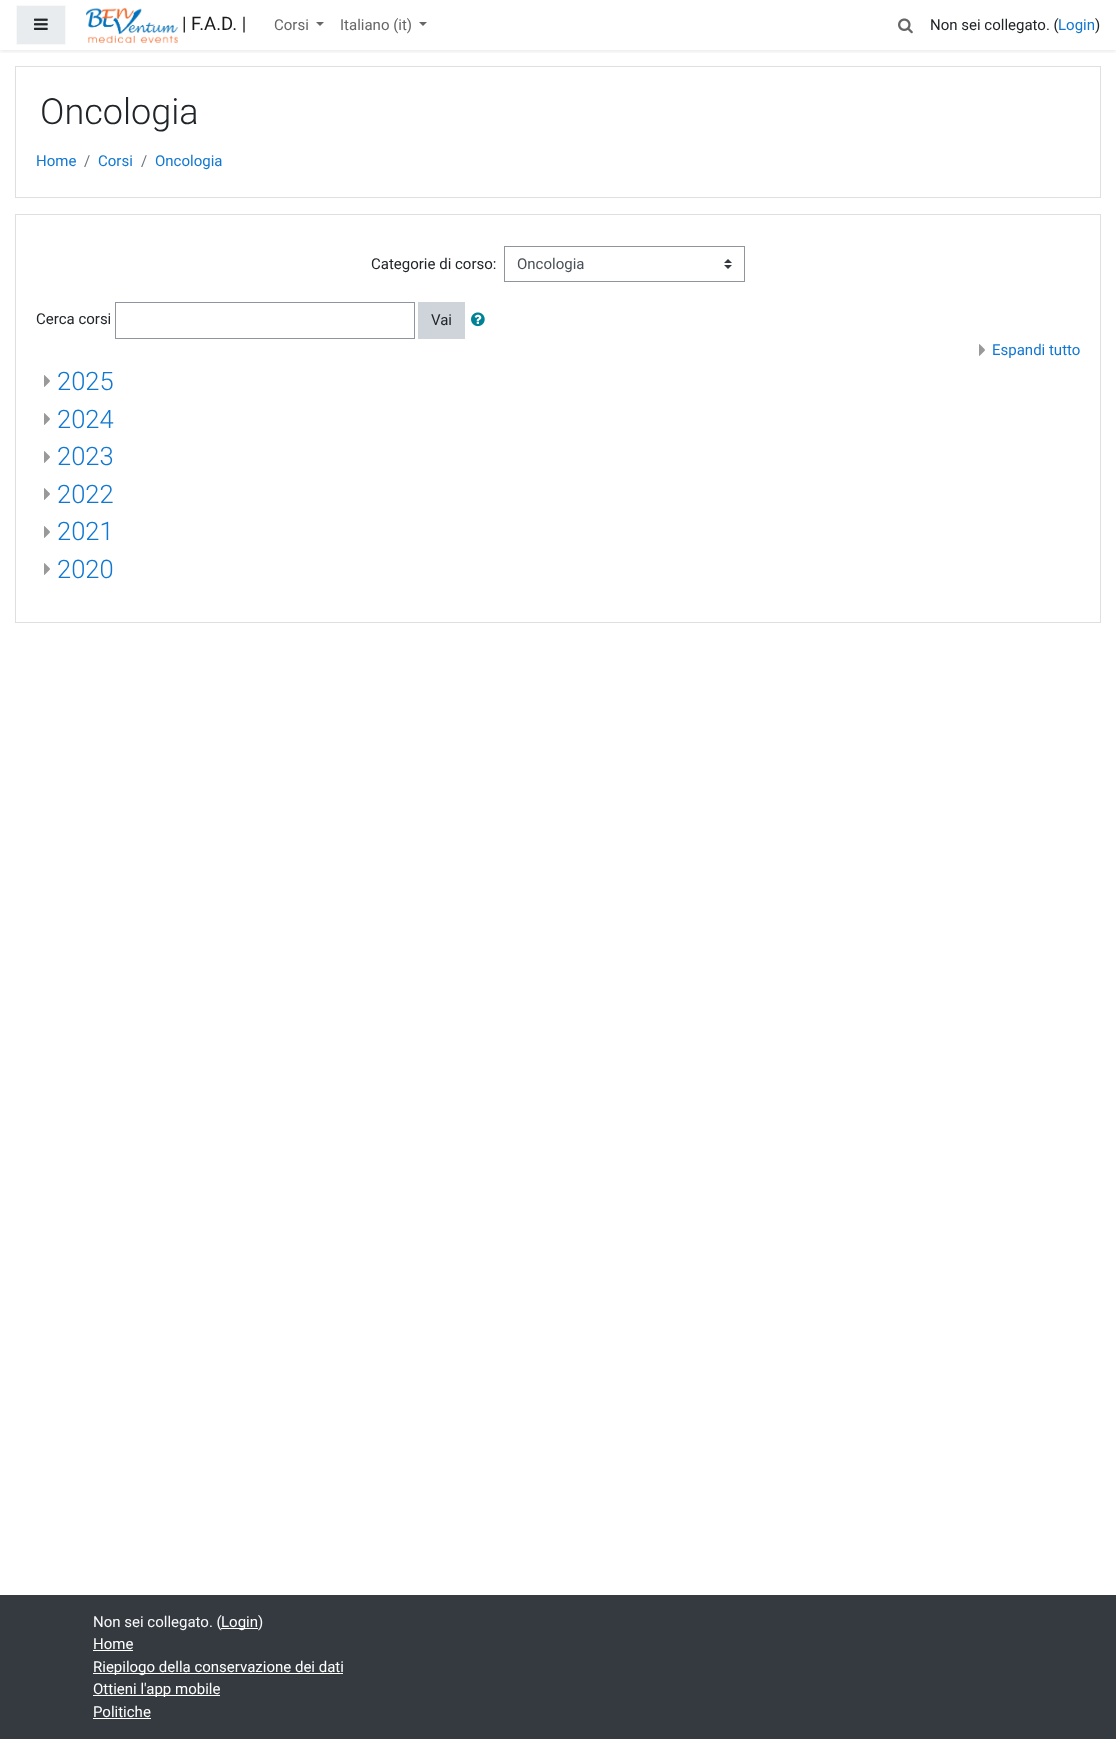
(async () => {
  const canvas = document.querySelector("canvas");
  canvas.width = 1116;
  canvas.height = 1739;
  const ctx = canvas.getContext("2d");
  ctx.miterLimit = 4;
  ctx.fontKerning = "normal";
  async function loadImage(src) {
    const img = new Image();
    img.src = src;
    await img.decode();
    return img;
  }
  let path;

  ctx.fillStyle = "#ffffff";
  ctx.fillRect(0, 0, 1116, 1739);
  ctx.save();
  ctx.beginPath();
  ctx.rect(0, 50, 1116, 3);
  ctx.clip();
  ctx.fillStyle = "rgba(0, 0, 0, 0.08)";
  ctx.filter = "blur(2px)";
  ctx.beginPath();
  ctx.rect(0, 2, 1116, 50);
  ctx.fill();
  ctx.filter = "none";
  ctx.restore();
  ctx.fillStyle = "#e9ecef";
  ctx.beginPath();
  ctx.rect(16.5, 5.5, 49, 39);
  ctx.fill();
  ctx.strokeStyle = "#f8f9fa";
  ctx.stroke();
  ctx.drawImage(await loadImage("img/1.png"), 34, 18, 14, 12);
  ctx.drawImage(await loadImage("img/2.png"), 86, 7, 92, 36);
  ctx.fillStyle = "#666666";
  path = new Path2D("M316 22H324L320 26Z");
  ctx.fill(path);
  path = new Path2D("M419 22H427L423 26Z");
  ctx.fill(path);
  ctx.drawImage(await loadImage("img/3.png"), 898, 18, 15, 16);
  ctx.strokeStyle = "#dfdfdf";
  ctx.strokeRect(15.5, 66.5, 1085, 131);
  ctx.strokeRect(15.5, 214.5, 1085, 408);
  ctx.drawImage(await loadImage("img/4.png"), 724, 259, 8, 10);
  ctx.strokeStyle = "#8f959e";
  ctx.strokeRect(504.5, 246.5, 240, 35);
  ctx.strokeRect(115.5, 302.5, 299, 36);
  ctx.fillStyle = "#ced4da";
  ctx.fillRect(418, 302, 47, 37);
  ctx.drawImage(await loadImage("img/5.png"), 471, 312, 14, 15);
  ctx.drawImage(await loadImage("img/6.png"), 979, 344, 6, 12);
  ctx.drawImage(await loadImage("img/6.png"), 44, 375, 6, 12);
  ctx.drawImage(await loadImage("img/6.png"), 44, 413, 6, 12);
  ctx.drawImage(await loadImage("img/6.png"), 44, 451, 6, 12);
  ctx.drawImage(await loadImage("img/6.png"), 44, 488, 6, 12);
  ctx.drawImage(await loadImage("img/6.png"), 44, 526, 6, 12);
  ctx.drawImage(await loadImage("img/6.png"), 44, 563, 6, 12);
  for (const [x, y, w, h, color] of [
    [0, 1595, 1116, 144, "#343a40"],
    [93, 1650, 40, 1, "#ffffff"],
    [93, 1673, 250, 1, "#ffffff"],
    [93, 1695, 127, 1, "#ffffff"],
    [93, 1718, 58, 1, "#ffffff"],
  ]) {
    ctx.fillStyle = color;
    ctx.fillRect(x, y, w, h);
  }
  ctx.font = "18.5px Roboto";
  ctx.fillStyle = "#1a1a1a";
  ctx.fillText("| F.A.D. |", 182, 30);
  ctx.font = "15px Roboto";
  ctx.fillStyle = "#666666";
  ctx.fillText("Corsi", 274, 30);
  ctx.fillText("Italiano (it)", 340, 30);
  ctx.fillStyle = "#212529";
  ctx.fillText("Non sei collegato. (", 930, 30);
  ctx.fillStyle = "#1177d1";
  ctx.fillText("Login", 1058, 30);
  ctx.fillStyle = "#212529";
  ctx.fillText(")", 1095, 30);
  ctx.font = "300 36px Roboto";
  ctx.fillText("Oncologia", 40, 124);
  ctx.font = "15px Roboto";
  ctx.fillStyle = "#1177d1";
  ctx.fillText("Home", 36, 166);
  ctx.fillStyle = "#6c757d";
  ctx.fillText("/", 84, 166);
  ctx.fillStyle = "#1177d1";
  ctx.fillText("Corsi", 98, 166);
  ctx.fillStyle = "#6c757d";
  ctx.fillText("/", 141, 166);
  ctx.fillStyle = "#1177d1";
  ctx.fillText("Oncologia", 155, 166);
  ctx.fillStyle = "#212529";
  ctx.fillText("Categorie di corso:", 371, 269);
  ctx.fillStyle = "#495057";
  ctx.fillText("Oncologia", 517, 269);
  ctx.fillStyle = "#212529";
  ctx.fillText("Cerca corsi", 36, 324);
  ctx.fillText("Vai", 431, 325);
  ctx.fillStyle = "#1177d1";
  ctx.fillText("Espandi tutto", 992, 355);
  ctx.font = "300 25.5px Roboto";
  for (const [text, x, y] of [
    ["2025", 57, 390],
    ["2024", 57, 428],
    ["2023", 57, 465],
    ["2022", 57, 503],
    ["2021", 57, 540],
    ["2020", 57, 578],
  ]) {
    ctx.fillText(text, x, y);
  }
  ctx.font = "15px Roboto";
  ctx.fillStyle = "#f8f9fa";
  ctx.fillText("Non sei collegato. (", 93, 1627);
  ctx.fillStyle = "#ffffff";
  ctx.fillRect(221, 1628, 37, 1);
  ctx.fillText("Login", 221, 1627);
  ctx.fillStyle = "#f8f9fa";
  ctx.fillText(")", 258, 1627);
  ctx.fillStyle = "#ffffff";
  for (const [text, x, y] of [
    ["Home", 93, 1649],
    ["Riepilogo della conservazione dei dati", 93, 1672],
    ["Ottieni l'app mobile", 93, 1694],
    ["Politiche", 93, 1717],
  ]) {
    ctx.fillText(text, x, y);
  }
})();
